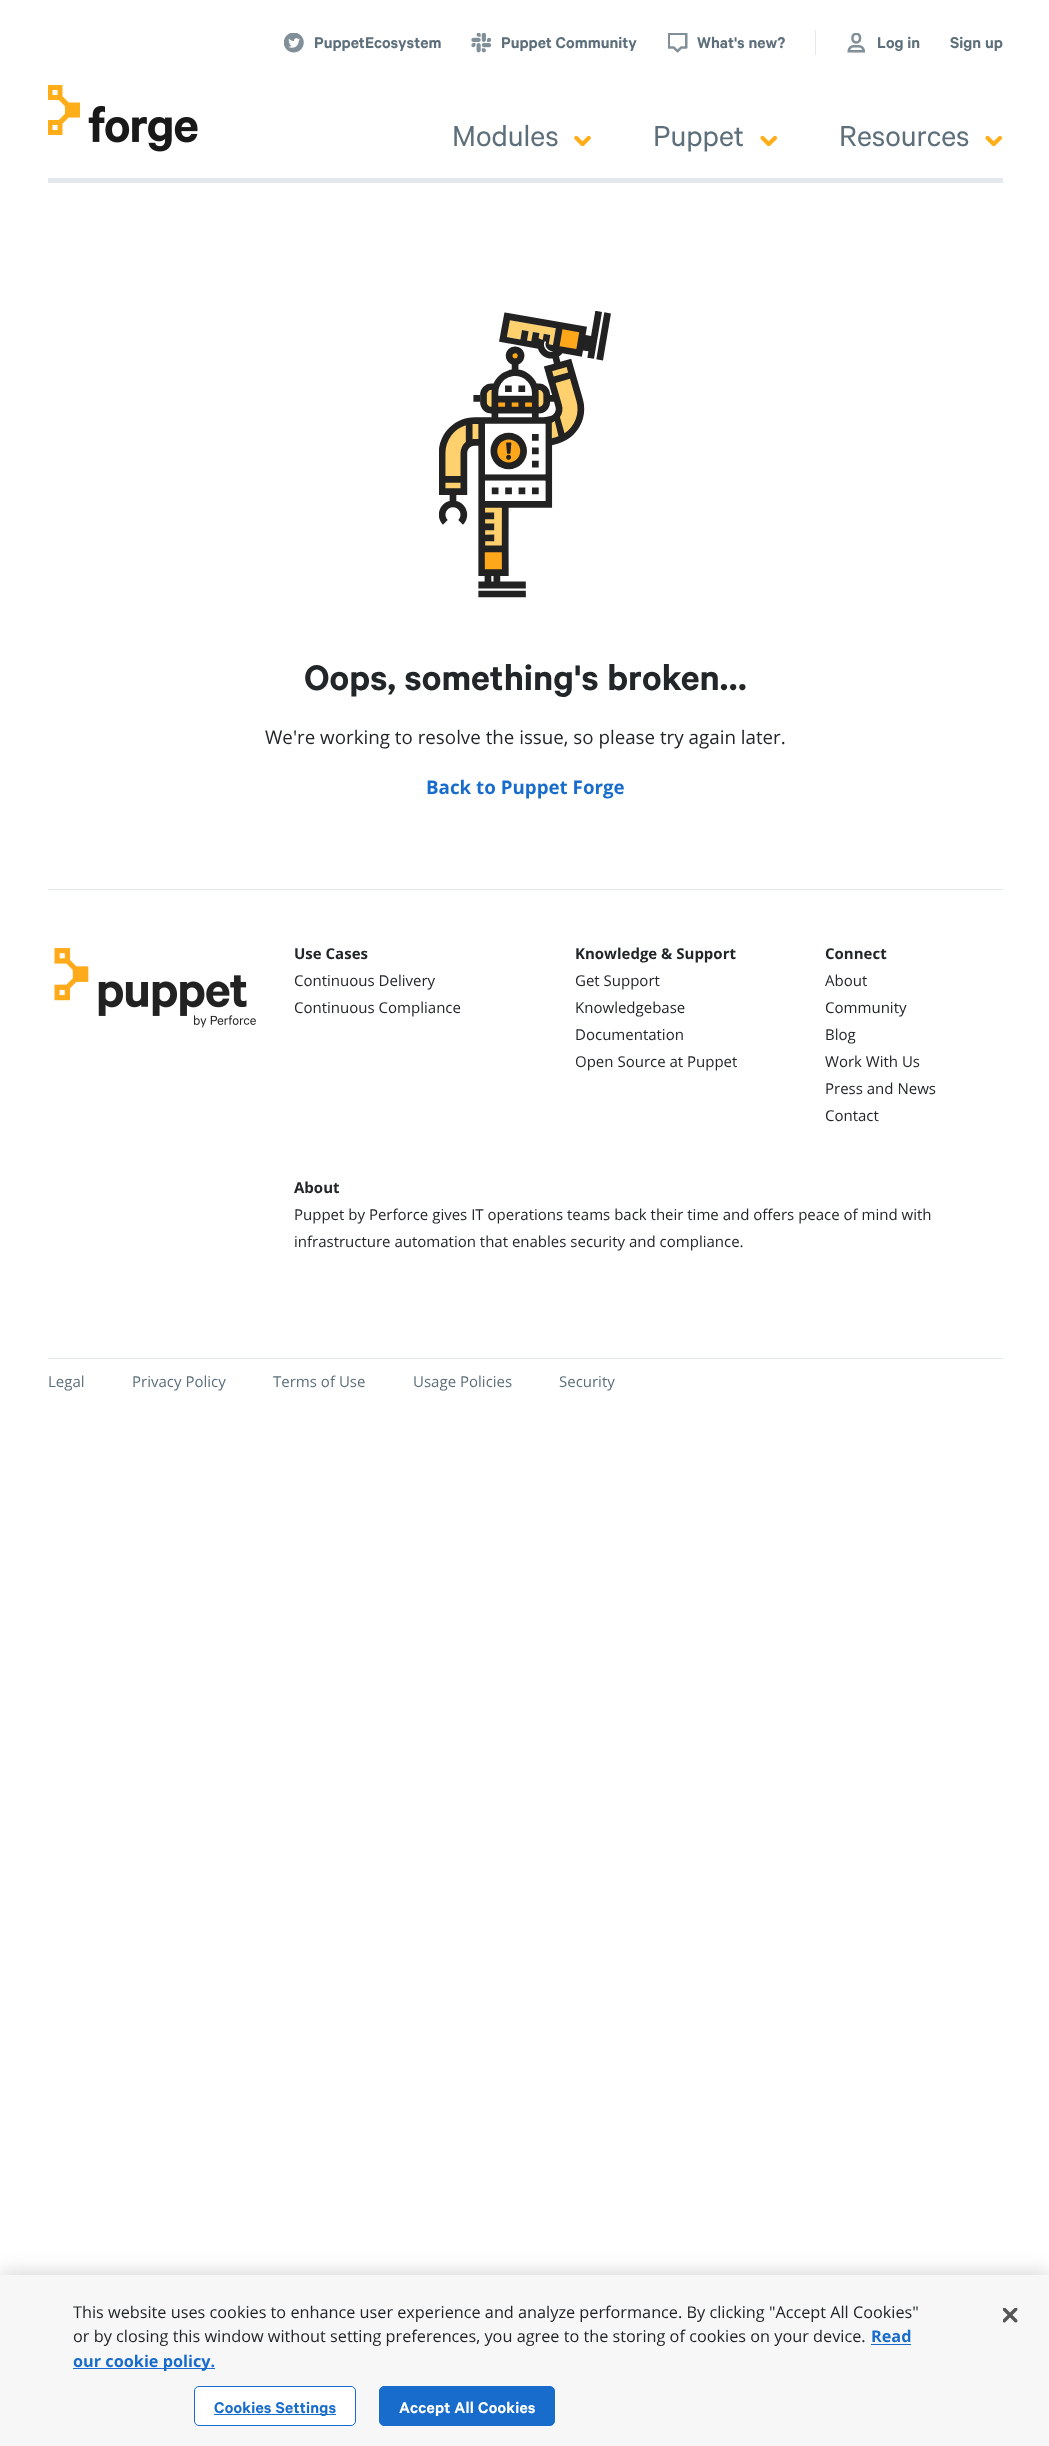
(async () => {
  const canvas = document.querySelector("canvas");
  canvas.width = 1049;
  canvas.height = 2446;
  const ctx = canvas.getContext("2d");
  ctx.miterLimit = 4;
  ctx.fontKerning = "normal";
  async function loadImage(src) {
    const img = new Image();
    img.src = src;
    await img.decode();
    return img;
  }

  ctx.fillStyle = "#ffffff";
  ctx.fillRect(0, 0, 1049, 2446);
  ctx.drawImage(await loadImage("img/1.png"), 284, 33, 20, 20);
  ctx.drawImage(await loadImage("img/2.png"), 471, 33, 20, 20);
  ctx.drawImage(await loadImage("img/3.png"), 668, 33, 20, 20);
  ctx.fillStyle = "#e4e9ed";
  ctx.fillRect(815, 30, 1, 25);
  ctx.drawImage(await loadImage("img/4.png"), 847, 33, 18, 20);
  ctx.fillRect(48, 178, 955, 5);
  ctx.drawImage(await loadImage("img/5.png"), 48, 85, 150, 67);
  ctx.drawImage(await loadImage("img/6.png"), 574, 135, 17, 11);
  ctx.drawImage(await loadImage("img/7.png"), 760, 135, 18, 11);
  ctx.drawImage(await loadImage("img/7.png"), 985, 135, 18, 11);
  ctx.drawImage(await loadImage("img/8.png"), 439, 310, 172, 288);
  ctx.fillRect(48, 889, 955, 1);
  ctx.drawImage(await loadImage("img/9.png"), 54, 948, 202, 80);
  ctx.fillRect(48, 1358, 955, 1);
  ctx.fillStyle = "rgba(0, 0, 0, 0.2)";
  ctx.filter = "blur(11px)";
  ctx.beginPath();
  ctx.rect(0, 2275, 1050, 171);
  ctx.fill();
  ctx.filter = "none";
  for (const [x, y, w, h, color] of [
    [0, 2275, 1049, 171, "#f7f7f7"],
    [871, 2344, 40, 1, "#186ccc"],
    [73, 2368, 142, 1, "#186ccc"],
  ]) {
    ctx.fillStyle = color;
    ctx.fillRect(x, y, w, h);
  }
  ctx.fillStyle = "#ffffff";
  ctx.beginPath();
  ctx.roundRect(194.5, 2386.5, 161, 39, 4.5);
  ctx.fill();
  ctx.strokeStyle = "#186ccc";
  ctx.stroke();
  ctx.fillStyle = "#186ccc";
  ctx.fillRect(214, 2414, 122, 1);
  ctx.beginPath();
  ctx.roundRect(379.5, 2386.5, 175, 39, 4.5);
  ctx.fill();
  ctx.stroke();
  ctx.drawImage(await loadImage("img/10.png"), 1003, 2308, 15, 15);
  ctx.font = "600 17.5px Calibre";
  ctx.fillStyle = "#5d6f7a";
  for (const [text, x, y] of [
    ["PuppetEcosystem", 314, 48],
    ["Puppet Community", 501, 48],
    ["What's new?", 697, 48],
    ["Log in", 877, 48],
    ["Sign up", 950, 48],
  ]) {
    ctx.fillText(text, x, y);
  }
  ctx.font = "32.5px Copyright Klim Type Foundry";
  for (const [text, x, y] of [
    ["Modules", 452, 146],
    ["Puppet", 653, 146],
    ["Resources", 839, 146],
  ]) {
    ctx.fillText(text, x, y);
  }
  ctx.font = "600 40px Calibre";
  ctx.fillStyle = "#222629";
  ctx.fillText("Oops, something's broken…", 304, 690);
  ctx.font = "18.75px Open Sans";
  ctx.fillText("We're working to resolve the issue, so please try again later.", 265, 744);
  ctx.font = "bold 18.75px Open Sans";
  ctx.fillStyle = "#186ccc";
  ctx.fillText("Back to Puppet Forge", 426, 794);
  ctx.font = "bold 15px Open Sans";
  ctx.fillStyle = "#222629";
  ctx.fillText("Use Cases", 294, 959);
  ctx.font = "15px Open Sans";
  ctx.fillText("Continuous Delivery", 294, 986);
  ctx.fillText("Continuous Compliance", 294, 1013);
  ctx.font = "bold 15px Open Sans";
  ctx.fillText("Knowledge & Support", 575, 959);
  ctx.font = "15px Open Sans";
  for (const [text, x, y] of [
    ["Get Support", 575, 986],
    ["Knowledgebase", 575, 1013],
    ["Documentation", 575, 1040],
    ["Open Source at Puppet", 575, 1067],
  ]) {
    ctx.fillText(text, x, y);
  }
  ctx.font = "bold 15px Open Sans";
  ctx.fillText("Connect", 825, 959);
  ctx.font = "15px Open Sans";
  for (const [text, x, y] of [
    ["About", 825, 986],
    ["Community", 825, 1013],
    ["Blog", 825, 1040],
    ["Work With Us", 825, 1067],
    ["Press and News", 825, 1094],
    ["Contact", 825, 1121],
  ]) {
    ctx.fillText(text, x, y);
  }
  ctx.font = "bold 15px Open Sans";
  ctx.fillText("About", 294, 1193);
  ctx.font = "15px Open Sans";
  ctx.fillText("Puppet by Perforce gives IT operations teams back their time and offers peace of mind with", 294, 1220);
  ctx.fillText("infrastructure automation that enables security and compliance.", 294, 1247);
  ctx.fillStyle = "#5d6f7a";
  for (const [text, x, y] of [
    ["Legal", 48, 1387],
    ["Privacy Policy", 132, 1387],
    ["Terms of Use", 273, 1387],
    ["Usage Policies", 413, 1387],
    ["Security", 559, 1387],
  ]) {
    ctx.fillText(text, x, y);
  }
  ctx.font = "16.25px Open Sans";
  ctx.fillStyle = "#222629";
  ctx.fillText("This website uses cookies to enhance user experience and analyze performance. By clicking \"Accept All Cookies\"", 73, 2318);
  ctx.fillText("or by closing this window without setting preferences, you agree to the storing of cookies on your device.", 73, 2342);
  ctx.font = "bold 16.25px Open Sans";
  ctx.fillStyle = "#186ccc";
  ctx.fillText("Read", 871, 2342);
  ctx.fillText("our cookie policy.", 73, 2367);
  ctx.letterSpacing = "0.2px";
  ctx.font = "600 17.5px Calibre";
  ctx.fillText("Cookies Settings", 214, 2413);
  ctx.fillStyle = "#ffffff";
  ctx.fillText("Accept All Cookies", 399, 2413);
})();
